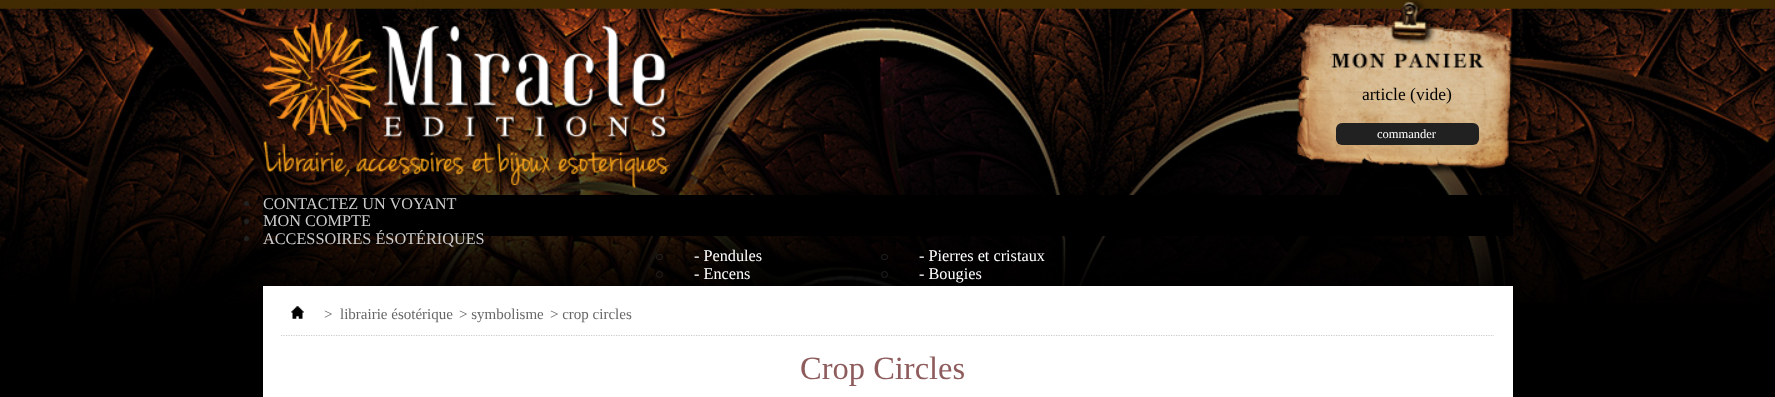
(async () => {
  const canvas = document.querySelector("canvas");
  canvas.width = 1775;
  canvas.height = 397;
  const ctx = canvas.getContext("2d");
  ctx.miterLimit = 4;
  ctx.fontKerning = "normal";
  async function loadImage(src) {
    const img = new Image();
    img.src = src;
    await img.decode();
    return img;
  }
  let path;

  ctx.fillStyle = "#000000";
  ctx.fillRect(0, 0, 1775, 397);
  ctx.drawImage(await loadImage("img/1.png"), 0, 0, 1775, 303);
  ctx.drawImage(await loadImage("img/2.png"), 262, 22, 408, 166);
  ctx.fillStyle = "#222121";
  ctx.beginPath();
  ctx.roundRect(1336, 123, 143, 22, 6);
  ctx.fill();
  ctx.fillStyle = "#ffffff";
  ctx.fillRect(263, 286, 1250, 50);
  path = new Path2D("M281 335.5H1494");
  ctx.strokeStyle = "#cccccc";
  ctx.lineWidth = 1.2;
  ctx.setLineDash([1.25, 1.25]);
  ctx.stroke(path);
  ctx.drawImage(await loadImage("img/3.png"), 291, 306, 13, 13);
  ctx.fillRect(263, 336, 1250, 61);
  ctx.fillStyle = "#000000";
  ctx.fillRect(263, 195, 1250, 41);
  ctx.fillStyle = "#222222";
  ctx.beginPath();
  ctx.arc(246.5, 203.5, 2.5, 0, Math.PI * 2);
  ctx.fill();
  ctx.beginPath();
  ctx.arc(246.5, 221.5, 2.5, 0, Math.PI * 2);
  ctx.fill();
  ctx.beginPath();
  ctx.arc(246.5, 238.5, 2.5, 0, Math.PI * 2);
  ctx.fill();
  ctx.beginPath();
  ctx.roundRect(656.5, 254.5, 6, 5, 2.5);
  ctx.strokeStyle = "#222222";
  ctx.lineWidth = 1;
  ctx.setLineDash([]);
  ctx.stroke();
  ctx.beginPath();
  ctx.arc(659.5, 274.5, 3, 0, Math.PI * 2);
  ctx.stroke();
  ctx.beginPath();
  ctx.roundRect(881.5, 254.5, 6, 5, 2.5);
  ctx.stroke();
  ctx.beginPath();
  ctx.arc(884.5, 274.5, 3, 0, Math.PI * 2);
  ctx.stroke();
  ctx.font = "17.5px Liberation Serif";
  ctx.fillStyle = "#000000";
  ctx.fillText("article (vide)", 1362, 100);
  ctx.font = "12.5px Liberation Serif";
  ctx.fillStyle = "#ffffff";
  ctx.fillText("commander", 1377, 138);
  ctx.font = "15px Liberation Serif";
  ctx.fillStyle = "#666666";
  for (const [text, x, y] of [
    [">", 324, 319],
    ["librairie ésotérique", 340, 319],
    ["> symbolisme", 459, 319],
    ["> crop circles", 550, 319],
  ]) {
    ctx.fillText(text, x, y);
  }
  ctx.font = "32.5px Liberation Serif";
  ctx.fillStyle = "#8e5c5c";
  ctx.fillText("Crop Circles", 800, 379);
  ctx.font = "16.25px Liberation Serif";
  ctx.fillStyle = "#cccccc";
  for (const [text, x, y] of [
    ["CONTACTEZ UN VOYANT", 263, 209],
    ["MON COMPTE", 263, 226],
    ["ACCESSOIRES ÉSOTÉRIQUES", 263, 244],
  ]) {
    ctx.fillText(text, x, y);
  }
  ctx.fillStyle = "#ffffff";
  for (const [text, x, y] of [
    ["- Pendules", 694, 261],
    ["- Encens", 694, 279],
    ["- Pierres et cristaux", 919, 261],
    ["- Bougies", 919, 279],
  ]) {
    ctx.fillText(text, x, y);
  }
})();
